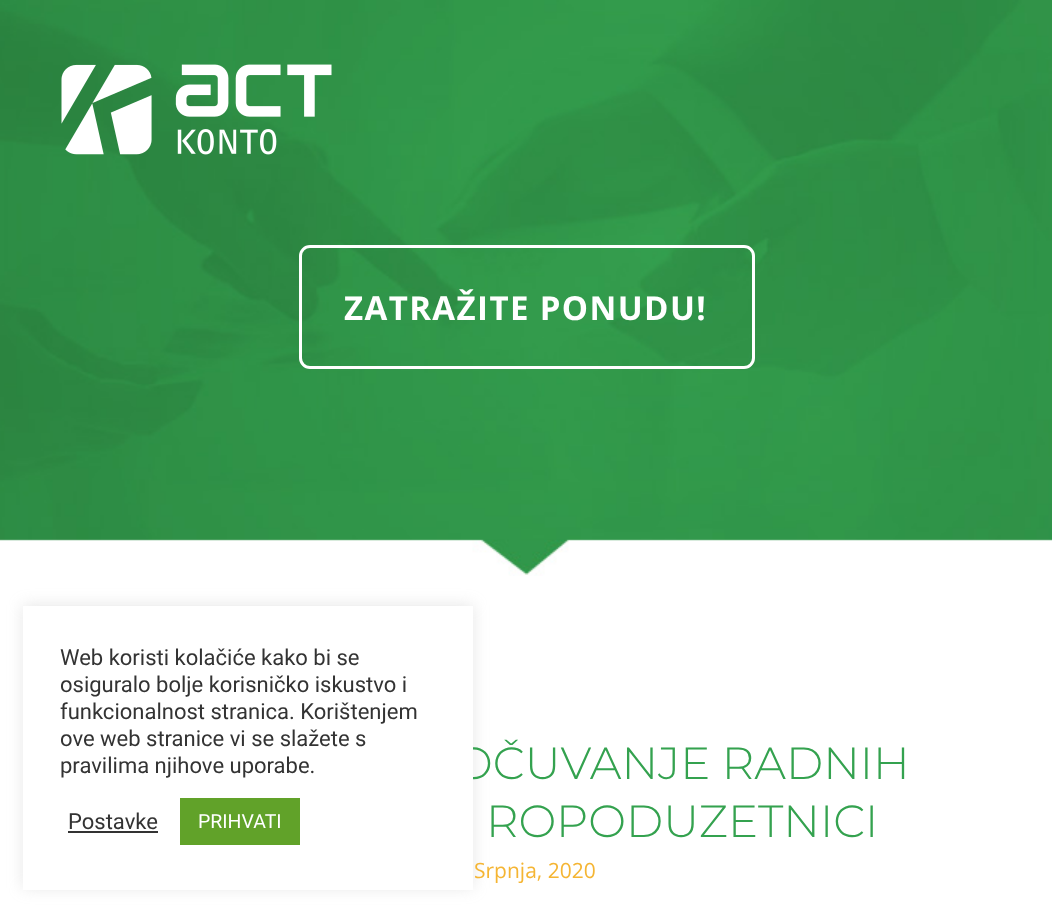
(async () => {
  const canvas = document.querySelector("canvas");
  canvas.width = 1052;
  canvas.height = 911;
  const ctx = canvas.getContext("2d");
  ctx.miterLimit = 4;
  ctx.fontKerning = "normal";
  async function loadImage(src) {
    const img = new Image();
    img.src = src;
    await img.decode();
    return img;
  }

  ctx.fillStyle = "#ffffff";
  ctx.fillRect(0, 0, 1052, 911);
  ctx.drawImage(await loadImage("img/1.png"), 0, 0, 1052, 576);
  ctx.drawImage(await loadImage("img/2.png"), 61, 64, 271, 91);
  ctx.beginPath();
  ctx.roundRect(300.5, 246.5, 453, 121, 9.5);
  ctx.strokeStyle = "#ffffff";
  ctx.lineWidth = 3;
  ctx.stroke();
  ctx.fillStyle = "rgba(172, 171, 171, 0.3)";
  ctx.filter = "blur(7.5px)";
  ctx.beginPath();
  ctx.rect(23, 605, 450, 283);
  ctx.fill();
  ctx.filter = "none";
  ctx.letterSpacing = "1.4px";
  ctx.font = "bold 33px Open Sans";
  ctx.fillStyle = "#ffffff";
  ctx.fillText("ZATRAŽITE PONUDU!", 344, 320);
  ctx.letterSpacing = "0px";
  ctx.font = "300 45px Montserrat";
  ctx.fillStyle = "#34a24f";
  ctx.fillText("OČUVANJE RADNIH", 455, 779);
  ctx.fillStyle = "#ffffff";
  ctx.fillRect(23, 606, 450, 284);
  ctx.fillStyle = "#61a229";
  ctx.fillRect(180, 798, 120, 47);
  ctx.font = "19.5px Roboto";
  ctx.fillStyle = "#ffffff";
  ctx.fillText("PRIHVATI", 198, 828);
  ctx.font = "22px Roboto";
  ctx.fillStyle = "#333333";
  ctx.fillText("Postavke", 68, 829);
  ctx.fillRect(68, 831, 90, 2);
  for (const [text, x, y] of [
    ["pravilima njihove uporabe.", 60, 773],
    ["ove web stranice vi se slažete s", 60, 746],
    ["funkcionalnost stranica. Korištenjem", 60, 719],
    ["osiguralo bolje korisničko iskustvo i", 60, 692],
    ["Web koristi kolačiće kako bi se", 60, 665],
  ]) {
    ctx.fillText(text, x, y);
  }
  ctx.font = "300 45px Montserrat";
  ctx.fillStyle = "#34a24f";
  ctx.fillText("ROPODUZETNICI", 486, 837);
  ctx.font = "21px Open Sans";
  ctx.fillStyle = "#f5b533";
  ctx.fillText("Srpnja, 2020", 474, 878);
})();
